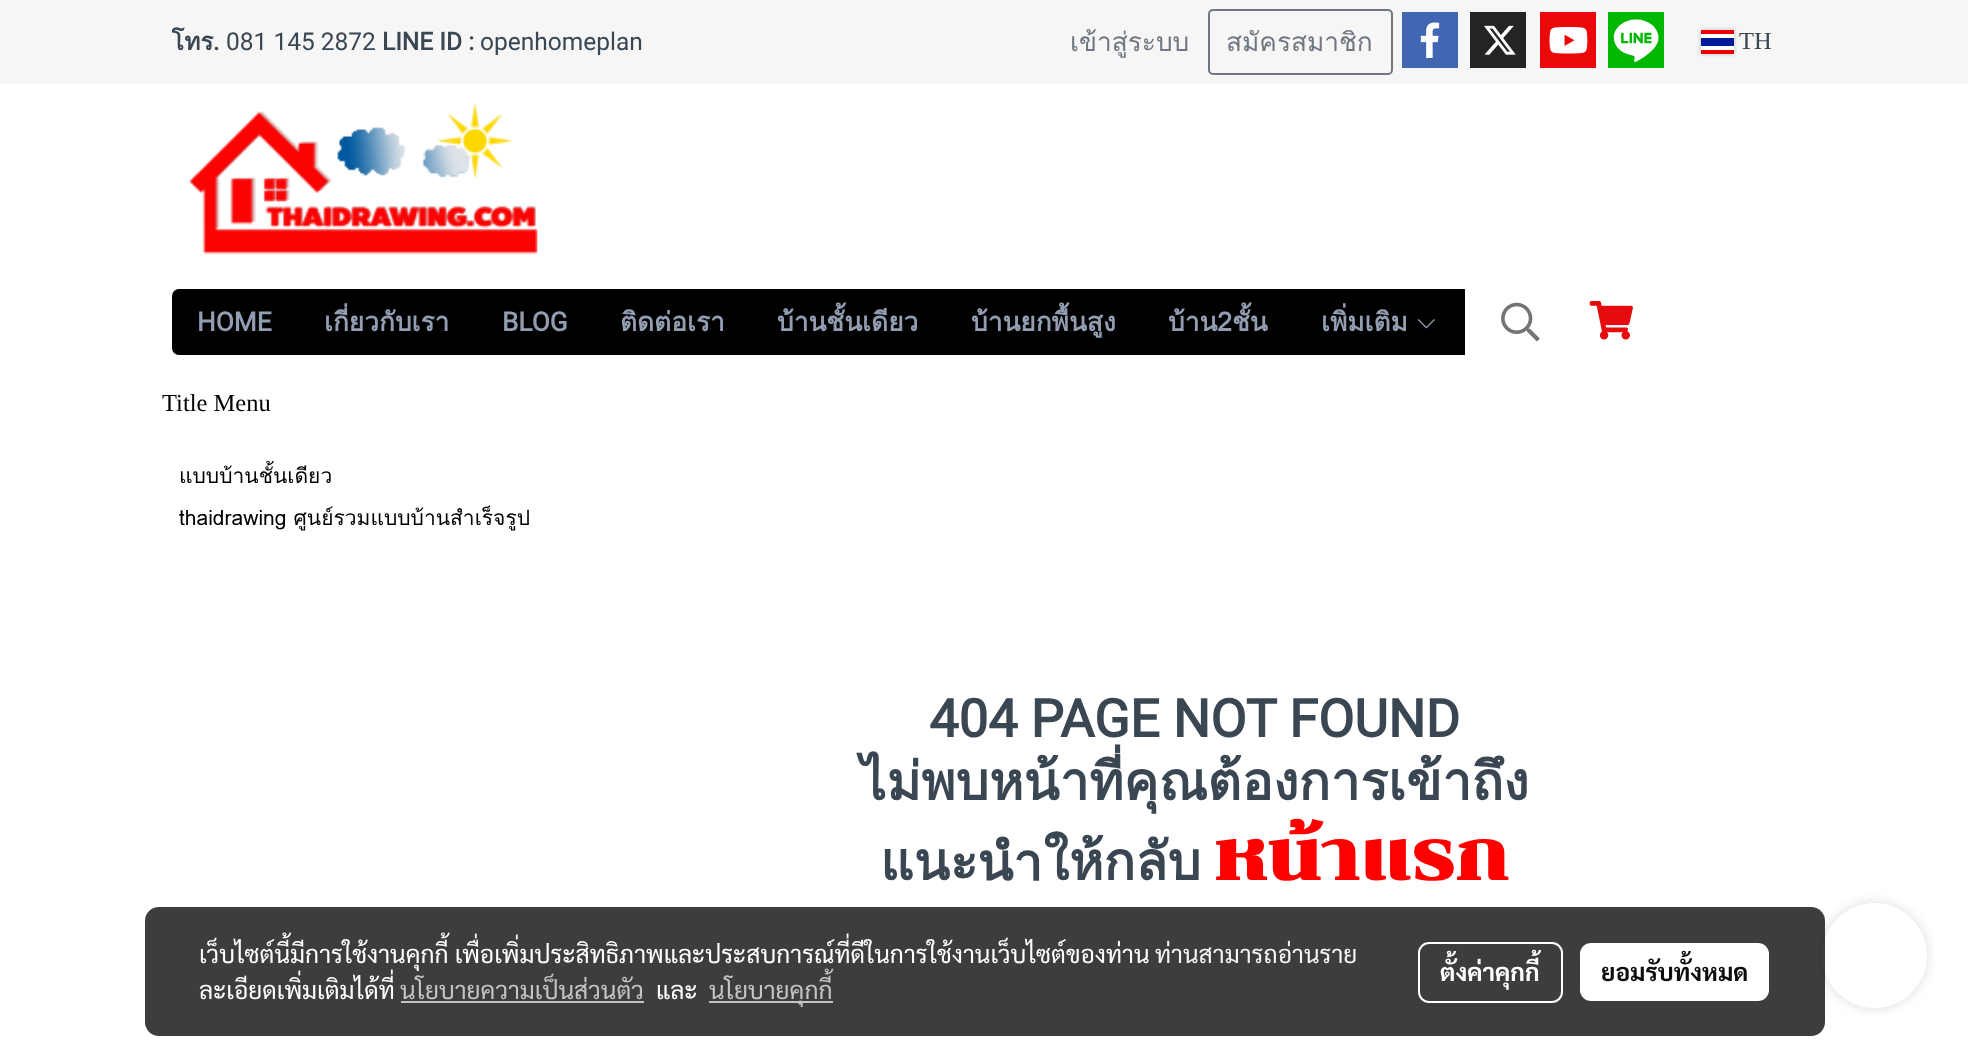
(async () => {
  const canvas = document.querySelector("canvas");
  canvas.width = 1968;
  canvas.height = 1050;
  const ctx = canvas.getContext("2d");
  ctx.miterLimit = 4;
  ctx.fontKerning = "normal";
  async function loadImage(src) {
    const img = new Image();
    img.src = src;
    await img.decode();
    return img;
  }

  ctx.fillStyle = "#ffffff";
  ctx.fillRect(0, 0, 1968, 1050);
  ctx.fillStyle = "#f6f6f6";
  ctx.fillRect(0, 0, 1968, 84);
  ctx.beginPath();
  ctx.roundRect(1209, 10, 183, 64, 4);
  ctx.strokeStyle = "#70777f";
  ctx.lineWidth = 2;
  ctx.stroke();
  ctx.fillStyle = "#4267b2";
  ctx.fillRect(1402, 12, 56, 56);
  ctx.drawImage(await loadImage("img/1.png"), 1420, 22, 20, 36);
  ctx.fillStyle = "#242424";
  ctx.fillRect(1470, 12, 56, 56);
  ctx.drawImage(await loadImage("img/2.png"), 1484, 25, 32, 30);
  ctx.fillStyle = "#eb0808";
  ctx.fillRect(1540, 12, 56, 56);
  ctx.drawImage(await loadImage("img/3.png"), 1549, 26, 39, 28);
  ctx.fillStyle = "#00b800";
  ctx.fillRect(1608, 12, 56, 56);
  ctx.drawImage(await loadImage("img/4.png"), 1613, 19, 46, 43);
  ctx.fillStyle = "rgba(0, 0, 0, 0.25)";
  ctx.filter = "blur(2px)";
  ctx.beginPath();
  ctx.rect(1701, 30, 33, 24);
  ctx.fill();
  ctx.filter = "none";
  for (const [x, y, w, h, color] of [
    [1701, 34, 33, 16, "#ffffff"],
    [1701, 38, 33, 8, "#001b9a"],
    [1701, 30, 33, 4, "#e70000"],
    [1701, 50, 33, 4, "#e70000"],
  ]) {
    ctx.fillStyle = color;
    ctx.fillRect(x, y, w, h);
  }
  ctx.drawImage(await loadImage("img/5.png"), 188, 103, 350, 152);
  ctx.fillStyle = "#000000";
  ctx.beginPath();
  ctx.roundRect(172, 289, 126, 66, [7, 0, 0, 7]);
  ctx.fill();
  ctx.fillRect(298, 289, 1167, 66);
  ctx.drawImage(await loadImage("img/6.png"), 1417, 319, 18, 10);
  ctx.drawImage(await loadImage("img/7.png"), 1501, 302, 39, 40);
  ctx.drawImage(await loadImage("img/8.png"), 1589, 301, 44, 39);
  ctx.fillStyle = "rgba(0, 0, 0, 0.14)";
  ctx.filter = "blur(6px)";
  ctx.beginPath();
  ctx.roundRect(1822, 903, 105, 105, 52.5);
  ctx.fill();
  ctx.filter = "none";
  ctx.fillStyle = "#ffffff";
  ctx.beginPath();
  ctx.arc(1874.5, 955.5, 52.5, 0, Math.PI * 2);
  ctx.fill();
  ctx.fillStyle = "rgba(0, 0, 0, 0.76)";
  ctx.beginPath();
  ctx.roundRect(145, 907, 1680, 129, 14);
  ctx.fill();
  ctx.fillStyle = "#c5c5c5";
  ctx.fillRect(401, 1001, 243, 2);
  ctx.fillRect(709, 1001, 124, 2);
  ctx.beginPath();
  ctx.roundRect(1419, 943, 143, 59, 10);
  ctx.strokeStyle = "#ffffff";
  ctx.stroke();
  ctx.fillStyle = "#ffffff";
  ctx.beginPath();
  ctx.roundRect(1580, 943, 189, 58, 11);
  ctx.fill();
  ctx.save();
  ctx.beginPath();
  ctx.rect(172, 18, 470, 50);
  ctx.clip();
  ctx.font = "bold 24.5px Loma";
  ctx.fillStyle = "#3a4753";
  ctx.fillText("โทร", 171, 50);
  ctx.restore();
  ctx.font = "bold 24.5px Roboto";
  ctx.fillStyle = "#3a4753";
  ctx.fillText(".", 213, 50);
  ctx.font = "24.5px Roboto";
  ctx.fillText("081 145 2872", 226, 50);
  ctx.font = "bold 24.5px Roboto";
  ctx.fillText("LINE ID :", 382, 50);
  ctx.font = "24.5px Roboto";
  ctx.fillText("openhomeplan", 480, 50);
  ctx.font = "26.25px Loma";
  ctx.fillStyle = "#70777f";
  ctx.fillText("เข้าสู่ระบบ", 1070, 51);
  ctx.fillText("สมัครสมาชิก", 1226, 51);
  ctx.font = "24.5px Liberation Serif";
  ctx.fillStyle = "#3a4753";
  ctx.fillText("TH", 1739, 49);
  ctx.font = "bold 26.25px Roboto";
  ctx.fillStyle = "#929db1";
  ctx.fillText("HOME", 197, 331);
  ctx.font = "bold 26.25px Loma";
  ctx.fillText("เกี่ยวกับเรา", 324, 331);
  ctx.font = "bold 26.25px Roboto";
  ctx.fillText("BLOG", 502, 331);
  ctx.font = "bold 26.25px Loma";
  for (const [text, x, y] of [
    ["ติดต่อเรา", 620, 331],
    ["บ้านชั้นเดียว", 777, 331],
    ["บ้านยกพื้นสูง", 971, 331],
    ["บ้าน2ชั้น", 1168, 331],
    ["เพิ่มเติม", 1321, 331],
  ]) {
    ctx.fillText(text, x, y);
  }
  ctx.font = "24.5px Liberation Serif";
  ctx.fillStyle = "#000000";
  ctx.fillText("Title Menu", 162, 411);
  ctx.font = "21px Loma";
  ctx.fillText("แบบบ้านชั้นเดียว", 179, 483);
  ctx.fillText("thaidrawing ศูนย์รวมแบบบ้านสำเร็จรูป", 179, 525);
  ctx.font = "bold 52.5px Roboto";
  ctx.fillStyle = "#3a4753";
  ctx.fillText("404 PAGE NOT FOUND", 929, 737);
  ctx.font = "bold 52.5px Loma";
  ctx.fillText("ไม่พบหน้าที่คุณต้องการเข้าถึง", 860, 800);
  ctx.fillText("แนะนำให้กลับ", 880, 880);
  ctx.font = "bold 70px Chonburi";
  ctx.fillStyle = "#ff0000";
  ctx.fillText("หน้าแรก", 1214, 880);
  ctx.font = "24.5px Sarabun";
  ctx.fillStyle = "#ffffff";
  ctx.fillText("เว็บไซต์นี้มีการใช้งานคุกกี้ เพื่อเพิ่มประสิทธิภาพและประสบการณ์ที่ดีในการใช้งานเว็บไซต์ของท่าน", 199, 963);
  ctx.fillStyle = "#f5f5f5";
  ctx.fillText("ท่านสามารถอ่านราย", 1155, 963);
  ctx.fillStyle = "#ffffff";
  ctx.fillText("ละเอียดเพิ่มเติมได้ที่", 199, 999);
  ctx.fillStyle = "#c5c5c5";
  ctx.fillText("นโยบายความเป็นส่วนตัว", 400, 999);
  ctx.fillStyle = "#ffffff";
  ctx.fillText("และ", 656, 999);
  ctx.fillStyle = "#c5c5c5";
  ctx.fillText("นโยบายคุกกี้", 709, 999);
  ctx.font = "bold 24.5px Sarabun";
  ctx.fillStyle = "#ffffff";
  ctx.fillText("ตั้งค่าคุกกี้", 1440, 981);
  ctx.fillStyle = "#0d0d0d";
  ctx.fillText("ยอมรับทั้งหมด", 1601, 981);
})();
